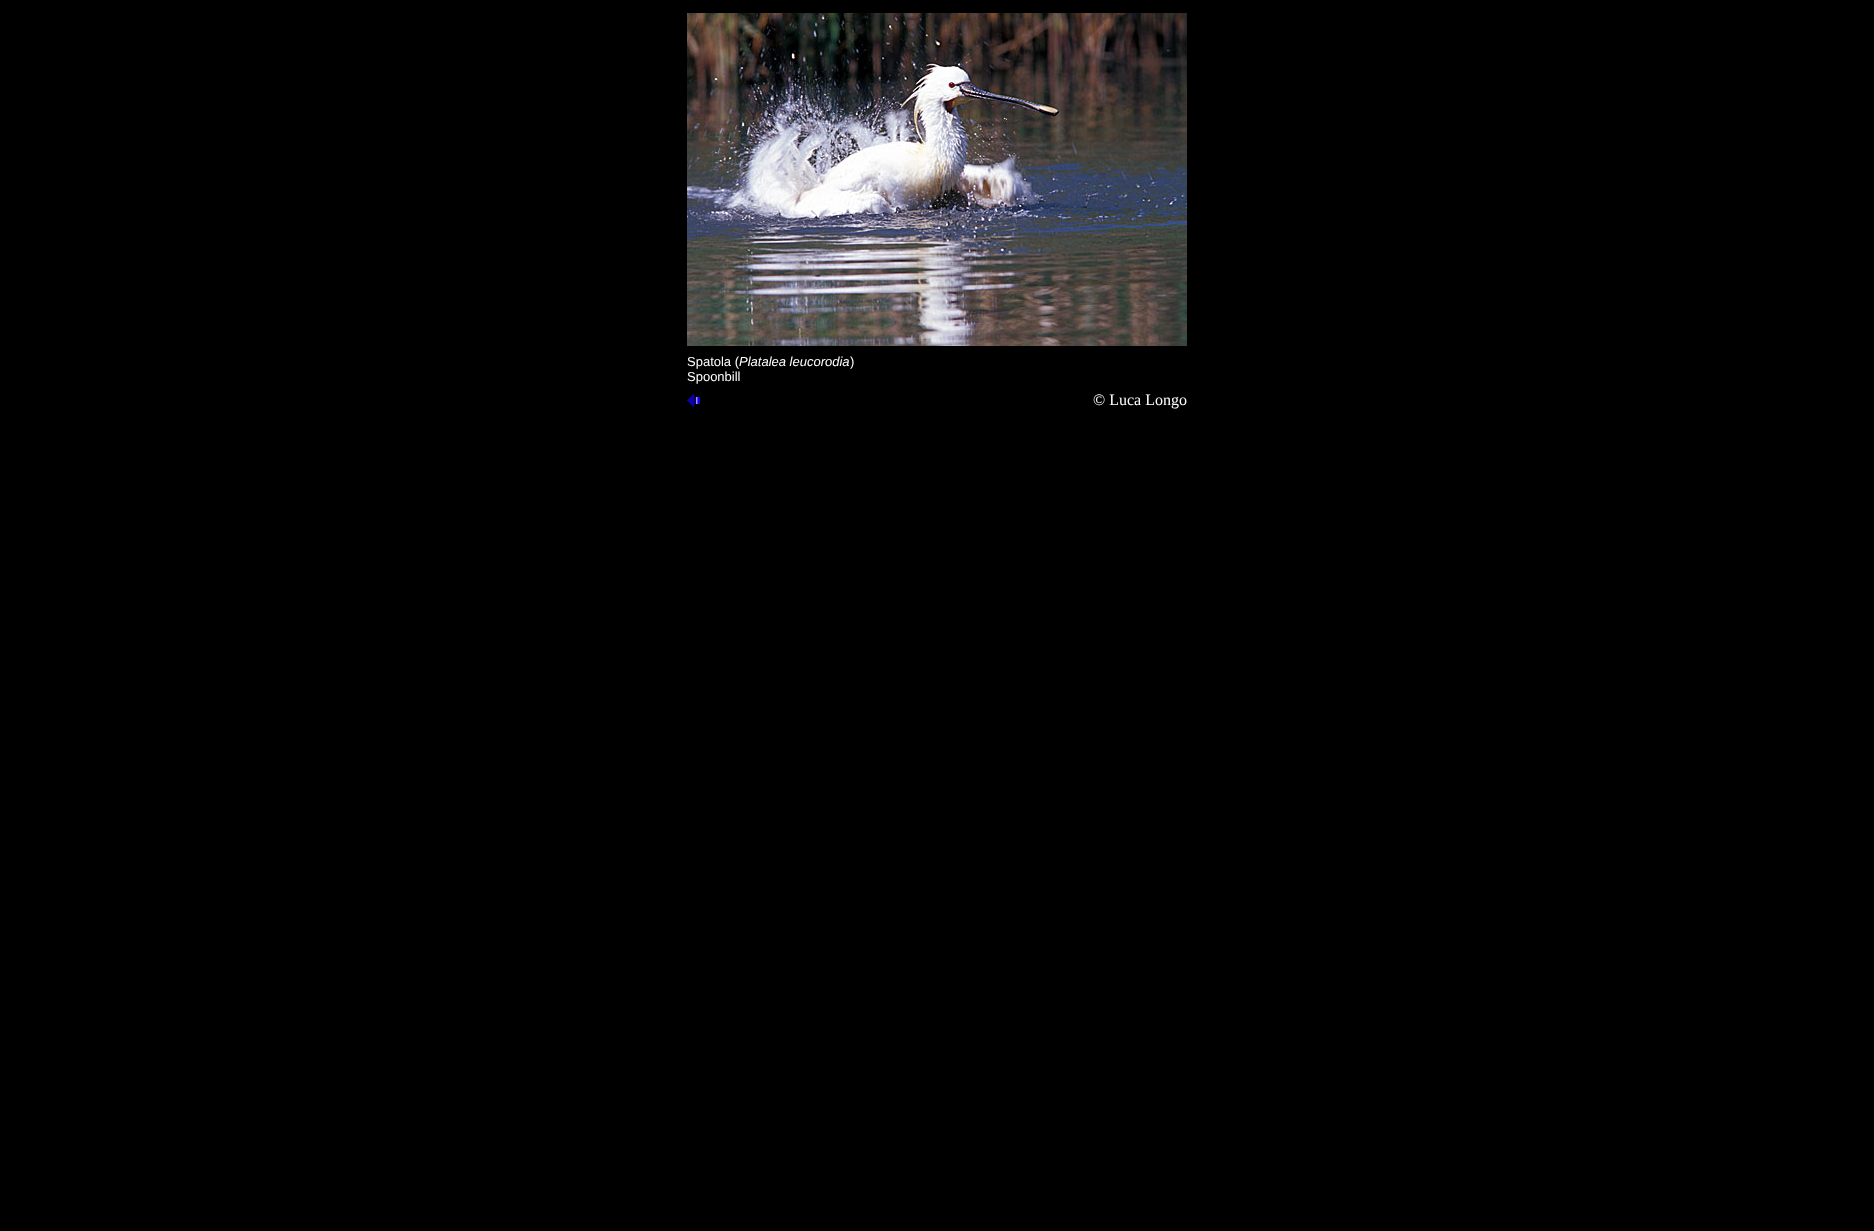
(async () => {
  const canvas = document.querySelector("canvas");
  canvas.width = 1874;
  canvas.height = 1231;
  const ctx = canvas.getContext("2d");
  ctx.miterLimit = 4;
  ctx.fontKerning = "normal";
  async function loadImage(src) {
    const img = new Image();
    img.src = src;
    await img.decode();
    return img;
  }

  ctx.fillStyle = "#000000";
  ctx.fillRect(0, 0, 1874, 1231);
  ctx.drawImage(await loadImage("img/1.png"), 687, 13, 500, 333);
  ctx.drawImage(await loadImage("img/2.png"), 687, 394, 13, 13);
  ctx.font = "13px Liberation Sans";
  ctx.fillStyle = "#ffffff";
  ctx.fillText("Spatola (", 687, 366);
  ctx.font = "italic 13px Liberation Sans";
  ctx.fillText("Platalea leucorodia", 739, 366);
  ctx.font = "13px Liberation Sans";
  ctx.fillText(")", 850, 366);
  ctx.fillText("Spoonbill", 687, 381);
  ctx.font = "16px Liberation Serif";
  ctx.fillText("© Luca Longo", 1093, 405);
})();
